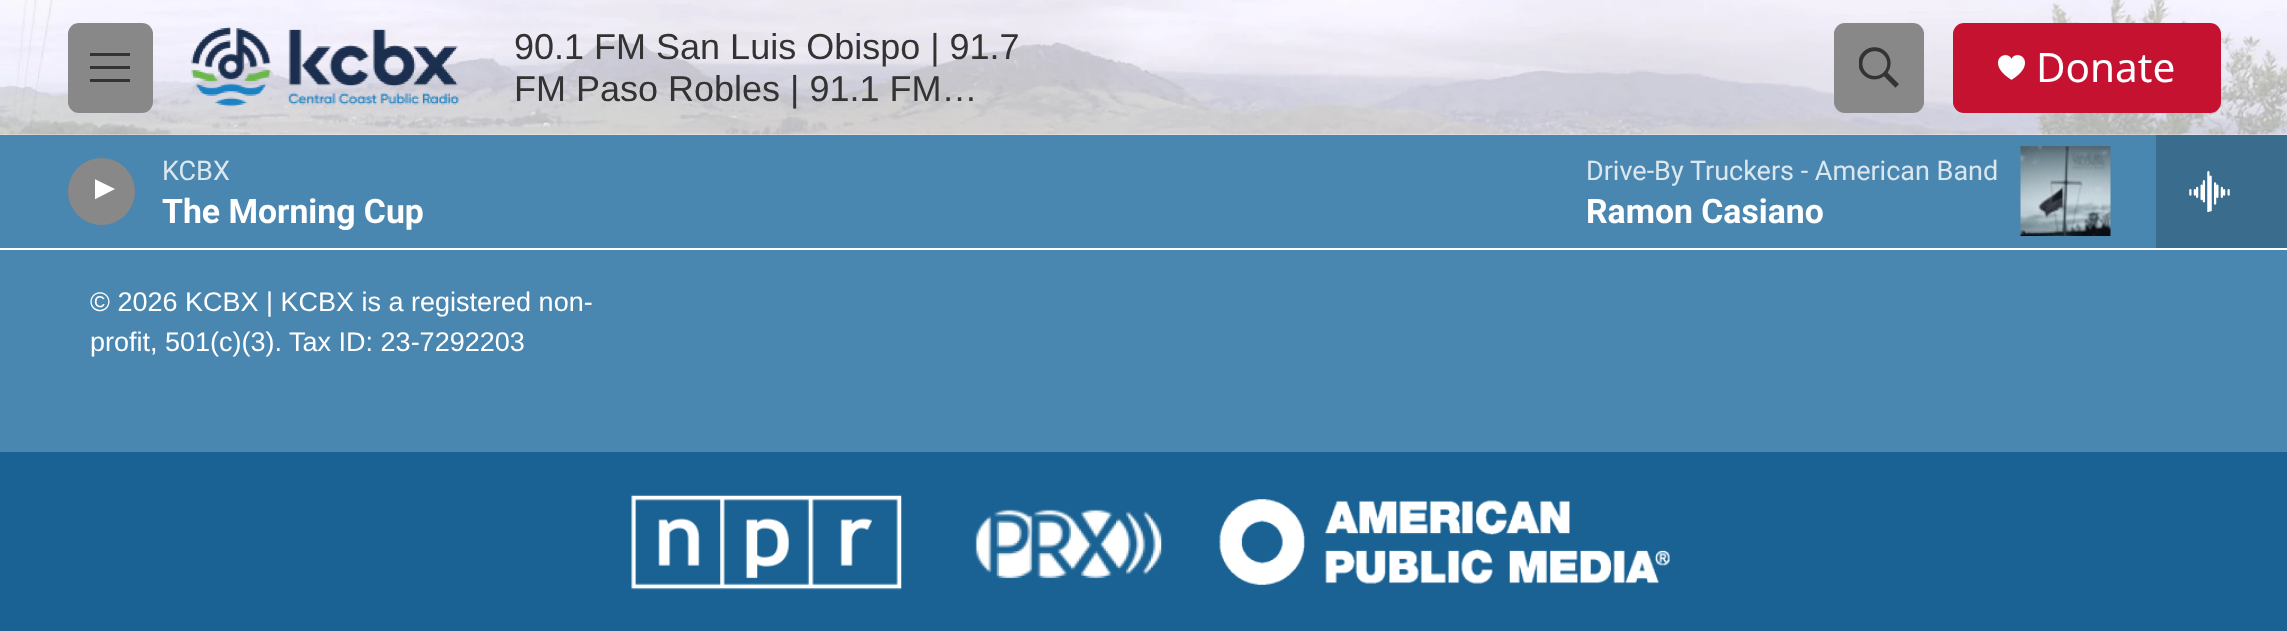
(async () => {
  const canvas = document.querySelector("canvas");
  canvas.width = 2287;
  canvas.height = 631;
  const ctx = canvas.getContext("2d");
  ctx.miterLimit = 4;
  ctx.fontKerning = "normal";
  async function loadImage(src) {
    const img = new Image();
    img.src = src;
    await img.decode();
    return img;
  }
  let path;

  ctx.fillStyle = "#4987b0";
  ctx.fillRect(0, 0, 2287, 631);
  ctx.fillStyle = "#ffffff";
  ctx.fillRect(0, 134, 2287, 116);
  ctx.drawImage(await loadImage("img/1.png"), 0, 0, 2287, 135);
  ctx.fillStyle = "#888888";
  ctx.beginPath();
  ctx.roundRect(68, 23, 85, 90, 11);
  ctx.fill();
  ctx.fillStyle = "#333333";
  path = new Path2D("M90 69V66H130V69ZM90 56V53H130V56ZM90 82V79H130V82Z");
  ctx.fill(path, "evenodd");
  ctx.drawImage(await loadImage("img/2.png"), 191, 26, 268, 81);
  ctx.fillStyle = "#888888";
  ctx.beginPath();
  ctx.roundRect(1834, 23, 90, 90, 11);
  ctx.fill();
  ctx.drawImage(await loadImage("img/3.png"), 1859, 47, 40, 41);
  ctx.fillStyle = "#c41230";
  ctx.beginPath();
  ctx.roundRect(1953, 23, 268, 90, 11);
  ctx.fill();
  ctx.drawImage(await loadImage("img/4.png"), 1998, 55, 27, 25);
  ctx.fillStyle = "#4987b0";
  ctx.fillRect(0, 135, 2156, 113);
  ctx.fillStyle = "#888888";
  ctx.beginPath();
  ctx.arc(101.5, 191.5, 33.5, 0, Math.PI * 2);
  ctx.fill();
  ctx.save();
  ctx.beginPath();
  ctx.rect(95, 176, 25, 33);
  ctx.clip();
  ctx.fillStyle = "#ffffff";
  path = new Path2D("M93.5 178.5L115 189L93.5 200Z");
  ctx.fill(path);
  ctx.restore();
  ctx.drawImage(await loadImage("img/5.png"), 2020, 146, 91, 90);
  ctx.fillStyle = "#3a6c8d";
  ctx.fillRect(2156, 135, 131, 113);
  ctx.drawImage(await loadImage("img/6.png"), 2189, 171, 41, 41);
  ctx.fillStyle = "#196293";
  ctx.fillRect(0, 452, 2287, 179);
  ctx.drawImage(await loadImage("img/7.png"), 631, 494, 271, 96);
  ctx.drawImage(await loadImage("img/8.png"), 975, 509, 188, 70);
  ctx.drawImage(await loadImage("img/9.png"), 1219, 499, 451, 86);
  ctx.font = "36px Liberation Sans";
  ctx.fillStyle = "#333333";
  ctx.fillText("90.1 FM San Luis Obispo | 91.7", 514, 59);
  ctx.fillText("FM Paso Robles | 91.1 FM…", 514, 101);
  ctx.font = "40.5px Noto Sans";
  ctx.fillStyle = "#ffffff";
  ctx.fillText("Donate", 2036, 82);
  ctx.font = "27px Roboto";
  ctx.fillStyle = "#dbe7ef";
  ctx.fillText("KCBX", 162, 180);
  ctx.font = "bold 33.75px Roboto";
  ctx.fillStyle = "#ffffff";
  ctx.fillText("The Morning Cup", 162, 223);
  ctx.font = "27px Roboto";
  ctx.fillStyle = "#dbe7ef";
  ctx.fillText("Drive-By Truckers - American Band", 1586, 180);
  ctx.font = "bold 33.75px Roboto";
  ctx.fillStyle = "#ffffff";
  ctx.fillText("Ramon Casiano", 1586, 223);
  ctx.font = "27px Liberation Sans";
  ctx.fillText("© 2026 KCBX | KCBX is a registered non-", 90, 311);
  ctx.fillText("profit, 501(c)(3). Tax ID: 23-7292203", 90, 351);
})();
